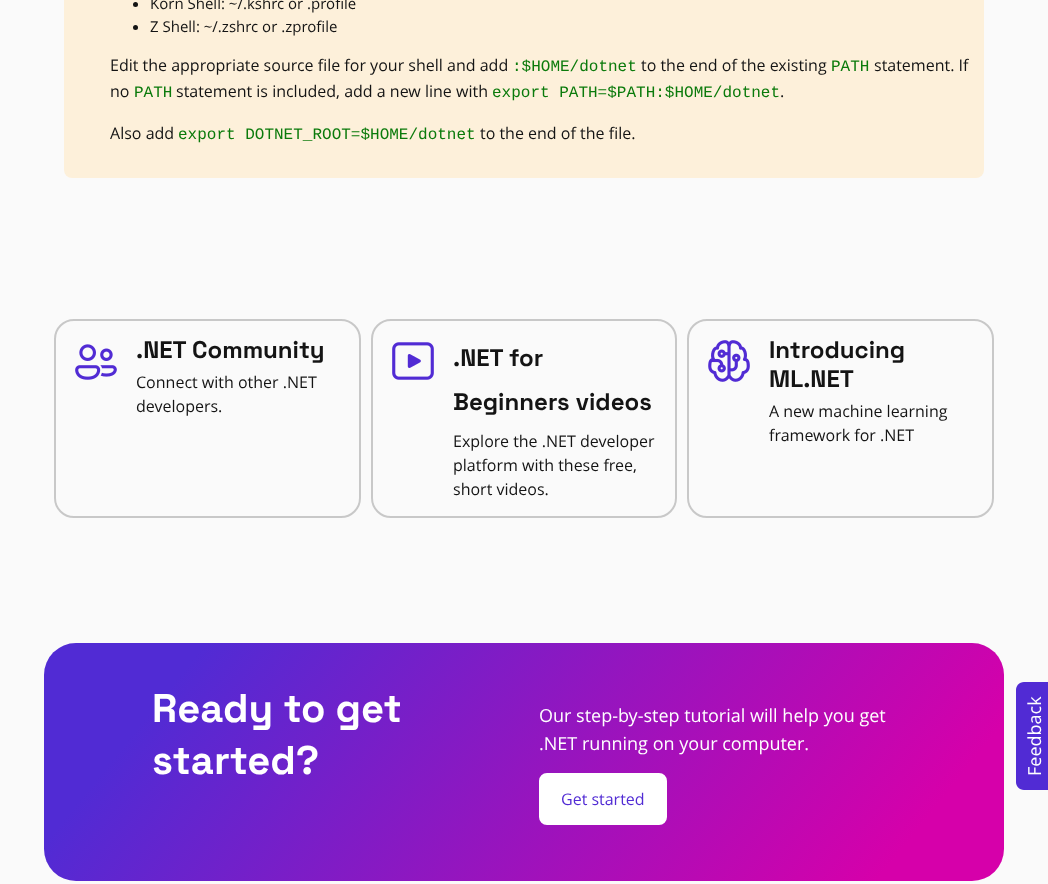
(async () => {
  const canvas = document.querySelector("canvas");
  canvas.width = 1048;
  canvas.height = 884;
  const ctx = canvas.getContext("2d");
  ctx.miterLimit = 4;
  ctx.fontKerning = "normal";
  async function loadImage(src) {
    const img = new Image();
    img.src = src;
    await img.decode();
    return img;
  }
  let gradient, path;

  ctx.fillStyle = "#fafafa";
  ctx.fillRect(0, 0, 1048, 884);
  ctx.fillStyle = "#fdf0da";
  ctx.beginPath();
  ctx.roundRect(64, -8, 920, 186, 8);
  ctx.fill();
  ctx.fillStyle = "#141414";
  ctx.beginPath();
  ctx.arc(135.5, 4.5, 2.5, 0, Math.PI * 2);
  ctx.fill();
  ctx.beginPath();
  ctx.arc(135.5, 27.5, 2.5, 0, Math.PI * 2);
  ctx.fill();
  ctx.beginPath();
  ctx.roundRect(55, 320, 305, 197, 19);
  ctx.strokeStyle = "#c8c8c8";
  ctx.lineWidth = 2;
  ctx.stroke();
  ctx.drawImage(await loadImage("img/1.png"), 75, 344, 42, 36);
  ctx.beginPath();
  ctx.roundRect(372, 320, 304, 197, 19);
  ctx.stroke();
  ctx.drawImage(await loadImage("img/2.png"), 392, 342, 42, 38);
  ctx.beginPath();
  ctx.roundRect(688, 320, 305, 197, 19);
  ctx.stroke();
  ctx.drawImage(await loadImage("img/3.png"), 708, 340, 42, 42);
  gradient = ctx.createLinearGradient(175, 481, 873, 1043);
  gradient.addColorStop(0.14, "#512bd4");
  gradient.addColorStop(0.89, "#d600aa");
  ctx.fillStyle = gradient;
  ctx.beginPath();
  ctx.roundRect(44, 643, 960, 238, 32);
  ctx.fill();
  ctx.fillStyle = "#ffffff";
  ctx.beginPath();
  ctx.roundRect(540, 774, 126, 50, 7);
  ctx.fill();
  ctx.strokeStyle = "#ffffff";
  ctx.stroke();
  ctx.fillStyle = "#512bd4";
  path = new Path2D("M1016 782V690C1016 686 1019 682 1024 682H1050C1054 682 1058 686 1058 690V782C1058 786 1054 790 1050 790H1024C1019 790 1016 786 1016 782Z");
  ctx.fill(path);
  ctx.font = "15px Open Sans";
  ctx.fillStyle = "#141414";
  ctx.fillText("Korn Shell: ~/.kshrc or .profile", 150, 9);
  ctx.fillText("Z Shell: ~/.zshrc or .zprofile", 150, 32);
  ctx.font = "16px Open Sans";
  ctx.fillText("Edit the appropriate source file for your shell and add", 110, 71);
  ctx.font = "16px Liberation Mono";
  ctx.fillStyle = "#0b7a0b";
  ctx.fillText(":$HOME/dotnet", 512, 71);
  ctx.font = "16px Open Sans";
  ctx.fillStyle = "#141414";
  ctx.fillText("to the end of the existing", 641, 71);
  ctx.font = "16px Liberation Mono";
  ctx.fillStyle = "#0b7a0b";
  ctx.fillText("PATH", 831, 71);
  ctx.font = "16px Open Sans";
  ctx.fillStyle = "#141414";
  ctx.fillText("statement. If", 874, 71);
  ctx.fillText("no", 110, 97);
  ctx.font = "16px Liberation Mono";
  ctx.fillStyle = "#0b7a0b";
  ctx.fillText("PATH", 134, 97);
  ctx.font = "16px Open Sans";
  ctx.fillStyle = "#141414";
  ctx.fillText("statement is included, add a new line with", 176, 97);
  ctx.font = "16px Liberation Mono";
  ctx.fillStyle = "#0b7a0b";
  ctx.fillText("export PATH=$PATH:$HOME/dotnet", 492, 97);
  ctx.font = "16px Open Sans";
  ctx.fillStyle = "#141414";
  ctx.fillText(".", 780, 97);
  ctx.fillText("Also add", 110, 139);
  ctx.font = "16px Liberation Mono";
  ctx.fillStyle = "#0b7a0b";
  ctx.fillText("export DOTNET_ROOT=$HOME/dotnet", 178, 139);
  ctx.font = "16px Open Sans";
  ctx.fillStyle = "#141414";
  ctx.fillText("to the end of the file.", 480, 139);
  ctx.font = "300 24px Space Grotesk";
  ctx.fillText(".NET Community", 136, 358);
  ctx.font = "16px Open Sans";
  ctx.fillText("Connect with other .NET", 136, 388);
  ctx.fillText("developers.", 136, 412);
  ctx.font = "300 24px Space Grotesk";
  ctx.fillText(".NET for", 453, 366);
  ctx.fillText("Beginners videos", 453, 410);
  ctx.font = "16px Open Sans";
  for (const [text, x, y] of [
    ["Explore the .NET developer", 453, 447],
    ["platform with these free,", 453, 471],
    ["short videos.", 453, 495],
  ]) {
    ctx.fillText(text, x, y);
  }
  ctx.font = "300 24px Space Grotesk";
  ctx.fillText("Introducing", 769, 358);
  ctx.fillText("ML.NET", 769, 387);
  ctx.font = "16px Open Sans";
  ctx.fillText("A new machine learning", 769, 417);
  ctx.fillText("framework for .NET", 769, 441);
  ctx.font = "300 40px Space Grotesk";
  ctx.fillStyle = "#ffffff";
  ctx.fillText("Ready to get", 152, 722);
  ctx.fillText("started?", 152, 774);
  ctx.font = "18px Open Sans";
  ctx.fillText("Our step-by-step tutorial will help you get", 539, 722);
  ctx.fillText(".NET running on your computer.", 539, 750);
  ctx.font = "16px Open Sans";
  ctx.fillStyle = "#512bd4";
  ctx.fillText("Get started", 561, 805);
  ctx.font = "18px Open Sans";
  ctx.fillStyle = "#ffffff";
  ctx.save();
  ctx.translate(1041, 776);
  ctx.rotate(-90 * Math.PI / 180);
  ctx.fillText("Feedback", 0, 0);
  ctx.restore();
})();
